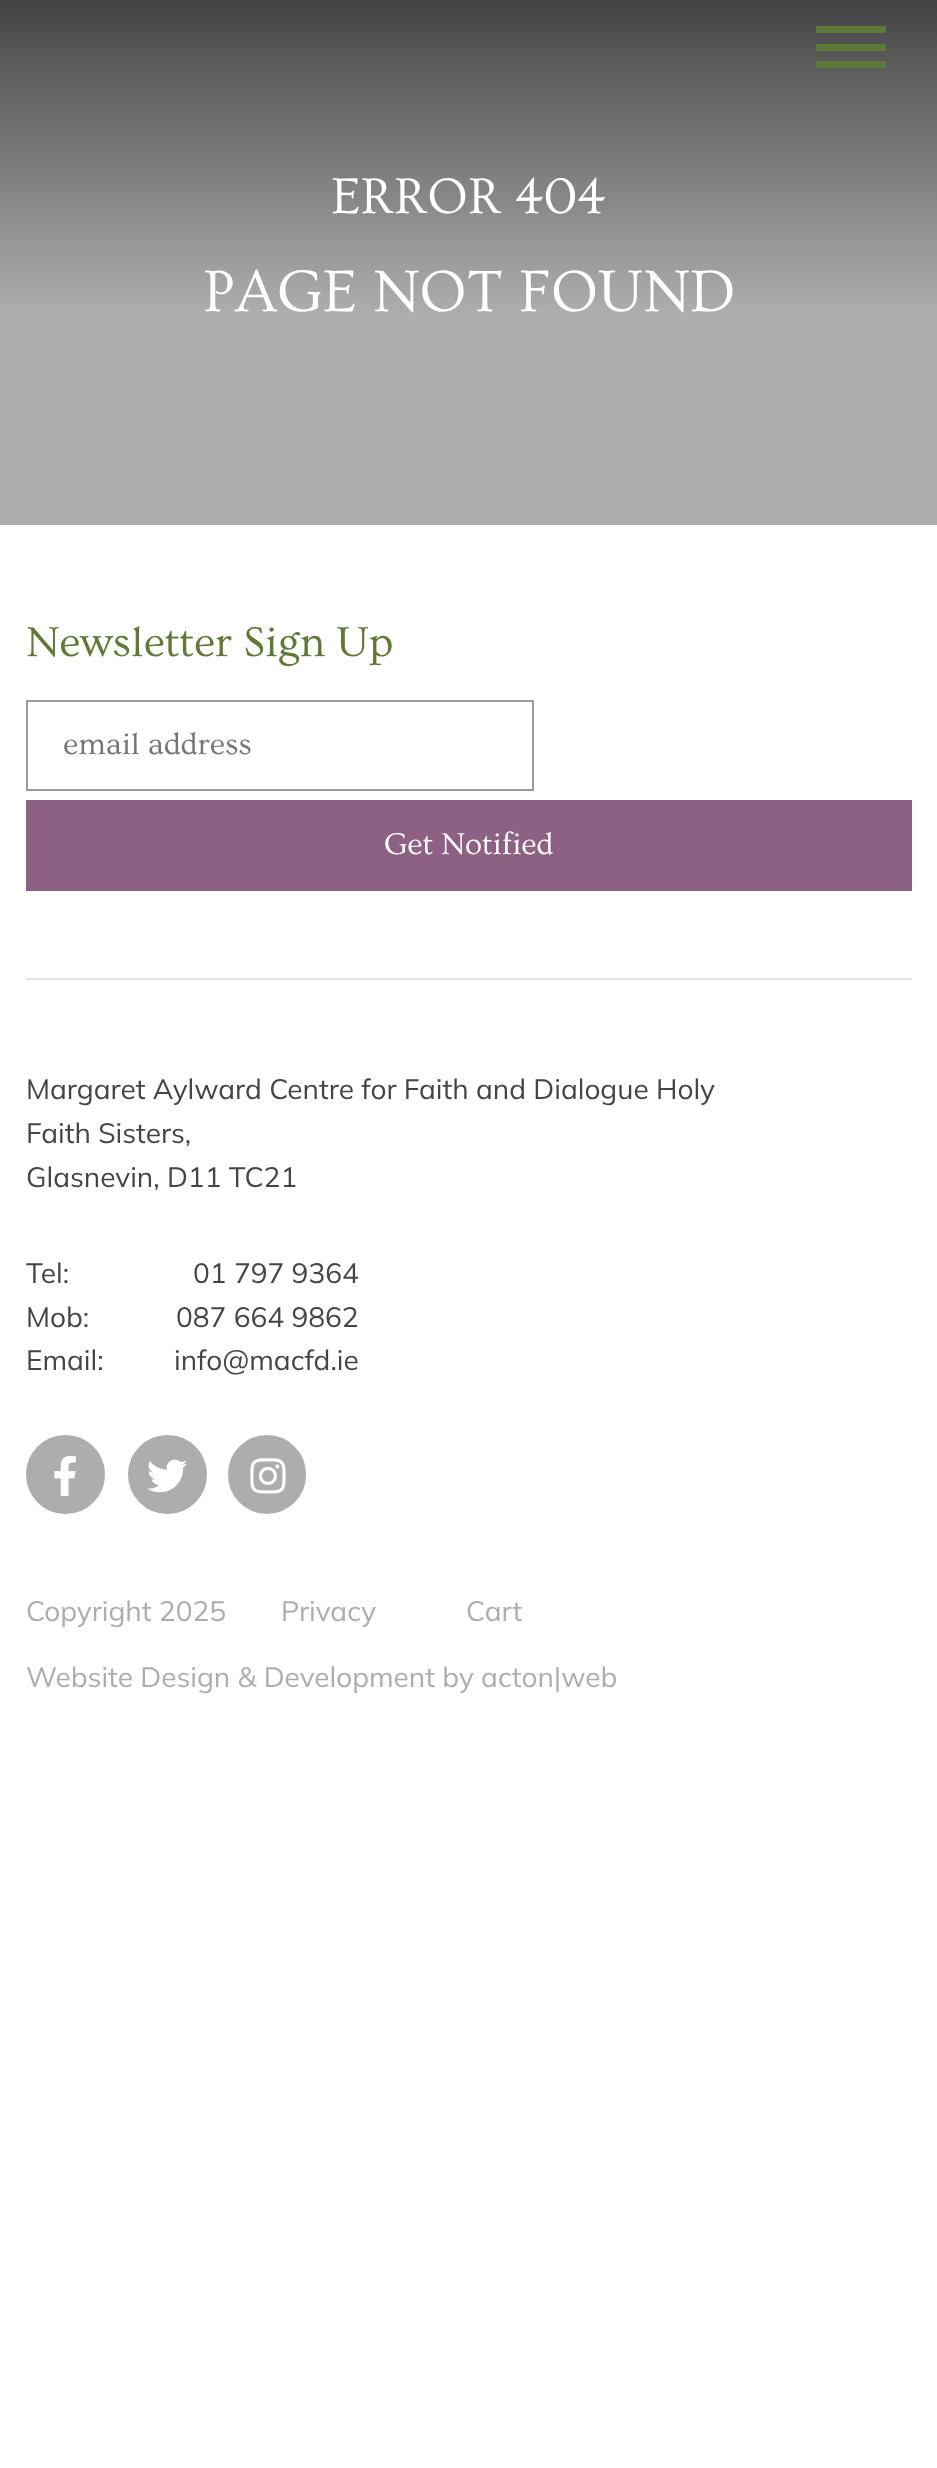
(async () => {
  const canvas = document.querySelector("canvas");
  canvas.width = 937;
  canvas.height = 2468;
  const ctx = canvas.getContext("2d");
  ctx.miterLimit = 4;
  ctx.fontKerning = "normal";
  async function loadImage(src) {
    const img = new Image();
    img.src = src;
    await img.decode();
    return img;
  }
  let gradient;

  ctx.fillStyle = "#ffffff";
  ctx.fillRect(0, 0, 937, 2468);
  gradient = ctx.createLinearGradient(469, 0, 469, 525);
  gradient.addColorStop(0, "#414141");
  gradient.addColorStop(0.1, "#575757");
  gradient.addColorStop(0.6, "#aeaeae");
  ctx.fillStyle = gradient;
  ctx.fillRect(0, 0, 937, 525);
  for (const [x, y, w, h, color] of [
    [816, 61, 70, 7, "#5e7a38"],
    [816, 26, 70, 7, "#5e7a38"],
    [816, 44, 70, 7, "#5e7a38"],
    [26, 978, 886, 2, "#dee2e6"],
  ]) {
    ctx.fillStyle = color;
    ctx.fillRect(x, y, w, h);
  }
  ctx.strokeStyle = "#9b9b99";
  ctx.lineWidth = 2;
  ctx.strokeRect(27, 701, 506, 89);
  ctx.fillStyle = "#8c6184";
  ctx.fillRect(26, 800, 886, 91);
  ctx.fillStyle = "#adadad";
  ctx.beginPath();
  ctx.arc(65.5, 1474.5, 38.5, 0, Math.PI * 2);
  ctx.fill();
  ctx.strokeStyle = "#adadad";
  ctx.stroke();
  ctx.drawImage(await loadImage("img/1.png"), 54, 1455, 22, 41);
  ctx.beginPath();
  ctx.arc(167.5, 1474.5, 38.5, 0, Math.PI * 2);
  ctx.fill();
  ctx.stroke();
  ctx.drawImage(await loadImage("img/2.png"), 147, 1459, 40, 34);
  ctx.beginPath();
  ctx.roundRect(229, 1436, 76, 77, 38);
  ctx.fill();
  ctx.stroke();
  ctx.drawImage(await loadImage("img/3.png"), 250, 1458, 36, 36);
  ctx.font = "52.5px Ovo";
  ctx.fillStyle = "#ffffff";
  ctx.fillText("ERROR 404", 331, 213);
  ctx.font = "61.25px Ovo";
  ctx.fillText("PAGE NOT FOUND", 203, 311);
  ctx.font = "43.75px Ovo";
  ctx.fillStyle = "#607a36";
  ctx.fillText("Newsletter Sign Up", 26, 656);
  ctx.font = "31.5px Ovo";
  ctx.fillStyle = "#757575";
  ctx.fillText("email address", 63, 754);
  ctx.fillStyle = "#ffffff";
  ctx.fillText("Get Notified", 384, 854);
  ctx.font = "200 28px Mulish";
  ctx.fillStyle = "#454545";
  for (const [text, x, y] of [
    ["Margaret Aylward Centre for Faith and Dialogue Holy", 26, 1099],
    ["Faith Sisters,", 26, 1143],
    ["Glasnevin, D11 TC21", 26, 1187],
    ["Tel:", 26, 1283],
    ["01 797 9364", 193, 1283],
    ["Mob:", 26, 1327],
    ["087 664 9862", 176, 1327],
    ["Email:", 26, 1370],
    ["info@macfd.ie", 174, 1370],
  ]) {
    ctx.fillText(text, x, y);
  }
  ctx.fillStyle = "#adadad";
  for (const [text, x, y] of [
    ["Copyright 2025", 26, 1621],
    ["Privacy", 281, 1621],
    ["Cart", 466, 1621],
    ["Website Design & Development by acton|web", 26, 1687],
  ]) {
    ctx.fillText(text, x, y);
  }
})();
